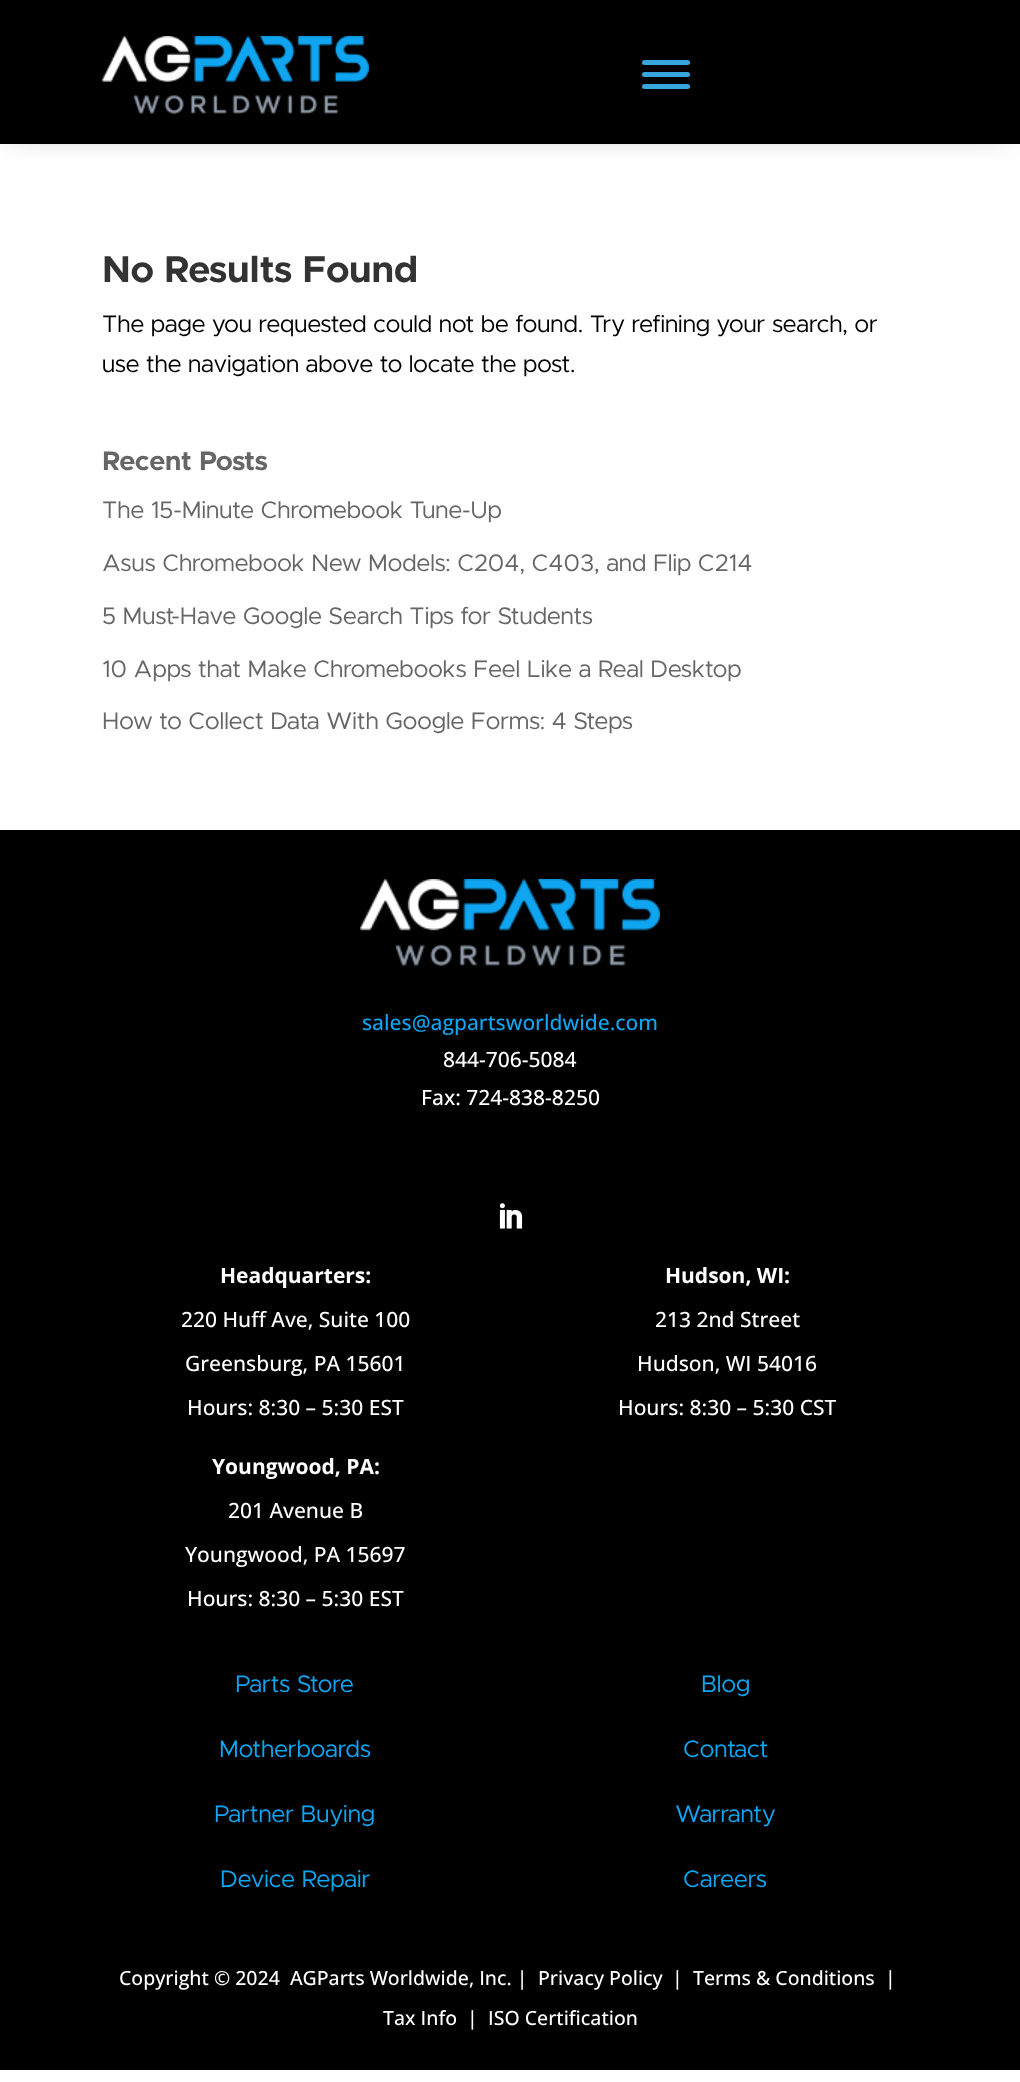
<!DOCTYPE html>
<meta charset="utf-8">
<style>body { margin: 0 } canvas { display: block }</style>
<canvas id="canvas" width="1020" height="2082"></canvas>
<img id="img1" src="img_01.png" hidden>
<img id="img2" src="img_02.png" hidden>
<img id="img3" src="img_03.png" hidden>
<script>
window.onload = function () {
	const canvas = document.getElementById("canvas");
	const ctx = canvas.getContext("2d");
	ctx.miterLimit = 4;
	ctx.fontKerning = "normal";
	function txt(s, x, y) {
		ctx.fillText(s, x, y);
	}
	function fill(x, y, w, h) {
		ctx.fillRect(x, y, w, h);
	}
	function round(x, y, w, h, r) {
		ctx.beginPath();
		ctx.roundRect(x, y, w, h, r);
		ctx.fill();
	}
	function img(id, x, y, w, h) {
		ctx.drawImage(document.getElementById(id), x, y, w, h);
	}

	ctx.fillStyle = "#FFFFFF";
	fill(0, 0, 1020, 2082);
	ctx.fillStyle = "rgba(0, 0, 0, 0.3)";
	ctx.filter = "blur(13.5px)";
	ctx.beginPath();
	ctx.rect(9, 8, 1002, 126);
	ctx.fill();
	ctx.filter = "none";
	ctx.fillStyle = "#000000";
	fill(0, 0, 1020, 144);
	img("img1", 102, 36, 267, 78);
	ctx.fillStyle = "#38A6DE";
	round(642, 60, 48, 5, 2.5);
	round(642, 72, 48, 5, 2.5);
	round(642, 84, 48, 5, 2.5);
	ctx.fillStyle = "#000000";
	fill(0, 830, 1020, 1240);
	img("img2", 360, 879, 300, 87);
	img("img3", 499, 1203, 24, 26);
	ctx.font = "bold 37.5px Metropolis";
	ctx.fillStyle = "#333333";
	txt("No Results Found", 102, 282);
	ctx.font = "24px Metropolis";
	ctx.fillStyle = "#000000";
	txt("The page you requested could not be found. Try refining your search, or", 102, 332);
	txt("use the navigation above to locate the post.", 102, 372);
	ctx.font = "bold 27px Metropolis";
	ctx.fillStyle = "#666666";
	txt("Recent Posts", 102, 470);
	ctx.font = "24px Metropolis";
	txt("The 15-Minute Chromebook Tune-Up", 102, 518);
	txt("Asus Chromebook New Models: C204, C403, and Flip C214", 102, 571);
	txt("5 Must-Have Google Search Tips for Students", 102, 624);
	txt("10 Apps that Make Chromebooks Feel Like a Real Desktop", 102, 677);
	txt("How to Collect Data With Google Forms: 4 Steps", 102, 729);
	ctx.font = "500 21px Open Sans";
	ctx.fillStyle = "#10A5F1";
	txt("sales@agpartsworldwide.com", 362, 1030);
	ctx.fillStyle = "#FFFFFF";
	txt("844-706-5084", 443, 1067);
	txt("Fax: 724-838-8250", 421, 1105);
	ctx.font = "bold 21px Open Sans";
	txt("Headquarters:", 220, 1283);
	ctx.font = "500 21px Open Sans";
	txt("220 Huff Ave, Suite 100", 181, 1327);
	txt("Greensburg, PA 15601", 185, 1371);
	txt("Hours: 8:30 – 5:30 EST", 187, 1415);
	ctx.font = "bold 21px Open Sans";
	txt("Youngwood, PA:", 212, 1474);
	ctx.font = "500 21px Open Sans";
	txt("201 Avenue B", 228, 1518);
	txt("Youngwood, PA 15697", 185, 1562);
	txt("Hours: 8:30 – 5:30 EST", 187, 1606);
	ctx.font = "bold 21px Open Sans";
	txt("Hudson, WI:", 665, 1283);
	ctx.font = "500 21px Open Sans";
	txt("213 2nd Street", 655, 1327);
	txt("Hudson, WI 54016", 637, 1371);
	txt("Hours: 8:30 – 5:30 CST", 618, 1415);
	ctx.font = "24px Metropolis";
	ctx.fillStyle = "#10A5F1";
	txt("Parts Store", 235, 1692);
	txt("Motherboards", 219, 1757);
	txt("Partner Buying", 214, 1822);
	txt("Device Repair", 220, 1887);
	txt("Blog", 701, 1692);
	txt("Contact", 683, 1757);
	txt("Warranty", 675, 1822);
	txt("Careers", 683, 1887);
	ctx.font = "500 19.5px Open Sans";
	ctx.fillStyle = "#FFFFFF";
	txt("Copyright © 2024  AGParts Worldwide, Inc. |", 119, 1985);
	txt("Privacy Policy", 538, 1985);
	txt("|", 672, 1985);
	txt("Terms & Conditions", 693, 1985);
	txt("|", 885, 1985);
	txt("Tax Info", 383, 2025);
	txt("|", 467, 2025);
	txt("ISO Certification", 488, 2025);
};
</script>
